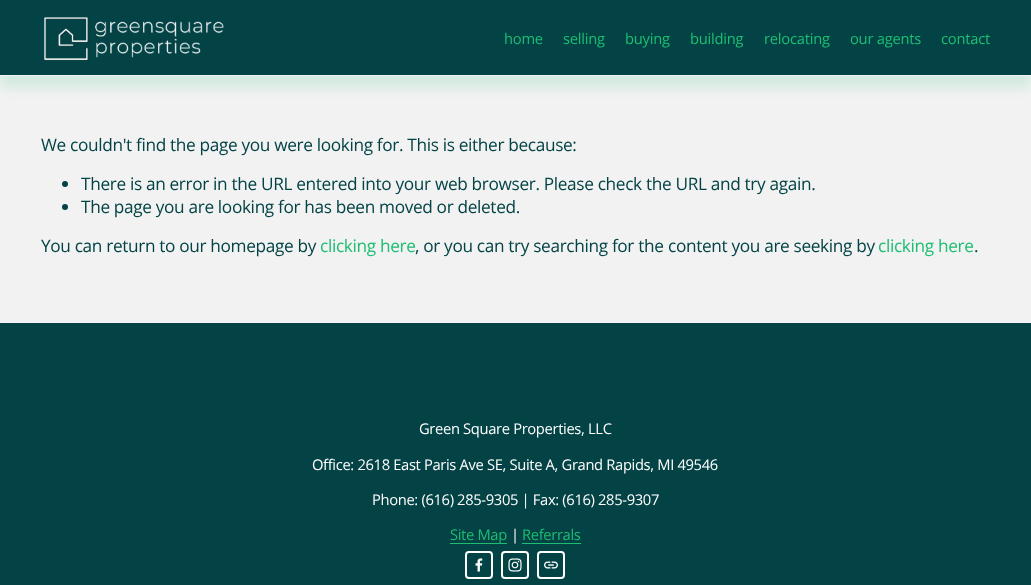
<!DOCTYPE html>
<meta charset="utf-8">
<style>body { margin: 0 } canvas { display: block }</style>
<canvas id="canvas" width="1031" height="585"></canvas>
<img id="img1" src="img_01.png" hidden>
<img id="img2" src="img_02.png" hidden>
<img id="img3" src="img_03.png" hidden>
<img id="img4" src="img_04.png" hidden>
<script>
window.onload = function () {
	const canvas = document.getElementById("canvas");
	const ctx = canvas.getContext("2d");
	ctx.miterLimit = 4;
	ctx.fontKerning = "normal";
	function txt(s, x, y) {
		ctx.fillText(s, x, y);
	}
	function fill(x, y, w, h) {
		ctx.fillRect(x, y, w, h);
	}
	function img(id, x, y, w, h) {
		ctx.drawImage(document.getElementById(id), x, y, w, h);
	}

	ctx.fillStyle = "#F2F2F2";
	fill(0, 0, 1031, 585);
	ctx.fillStyle = "#D2EADF";
	ctx.filter = "blur(6px)";
	ctx.beginPath();
	ctx.rect(0, 12, 1031, 76);
	ctx.fill();
	ctx.filter = "none";
	ctx.fillStyle = "#034345";
	fill(0, 0, 1031, 75);
	img("img1", 44, 17, 180, 44);
	ctx.fillStyle = "#F2F2F2";
	fill(0, 75, 1031, 1);
	ctx.fillStyle = "#034345";
	ctx.beginPath();
	ctx.arc(65, 184, 3, 0, Math.PI * 2);
	ctx.fill();
	ctx.beginPath();
	ctx.arc(65, 207, 3, 0, Math.PI * 2);
	ctx.fill();
	fill(0, 323, 1031, 262);
	ctx.fillStyle = "#1DBE72";
	fill(450, 543, 57, 1);
	fill(522, 543, 59, 1);
	ctx.beginPath();
	ctx.roundRect(466, 552, 26, 26, 3);
	ctx.strokeStyle = "#FFFFFF";
	ctx.lineWidth = 2;
	ctx.stroke();
	img("img2", 475, 558, 8, 14);
	ctx.beginPath();
	ctx.roundRect(502, 552, 26, 26, 3);
	ctx.stroke();
	img("img3", 508, 558, 14, 14);
	ctx.beginPath();
	ctx.roundRect(538, 552, 26, 26, 3);
	ctx.stroke();
	img("img4", 544, 561, 14, 8);
	ctx.letterSpacing = "-0.25px";
	ctx.font = "14.75px Open Sans";
	txt("home", 504, 44);
	txt("selling", 563, 44);
	txt("buying", 625, 44);
	txt("building", 690, 44);
	txt("relocating", 764, 44);
	txt("our agents", 850, 44);
	txt("contact", 941, 44);
	ctx.letterSpacing = "-0.35px";
	ctx.font = "17.25px Open Sans";
	ctx.fillStyle = "#034345";
	txt("We couldn't find the page you were looking for. This is either because:", 41, 151);
	txt("There is an error in the URL entered into your web browser. Please check the URL and try again.", 81, 190);
	txt("The page you are looking for has been moved or deleted.", 81, 213);
	txt("You can return to our homepage by", 41, 252);
	ctx.fillStyle = "#1DBE72";
	txt("clicking here", 320, 252);
	ctx.fillStyle = "#034345";
	txt(", or you can try searching for the", 415, 252);
	txt("content you are seeking by", 668, 252);
	ctx.fillStyle = "#1DBE72";
	txt("clicking here", 878, 252);
	ctx.fillStyle = "#034345";
	txt(".", 974, 252);
	ctx.font = "14.75px Open Sans";
	ctx.fillStyle = "#FFFFFF";
	txt("Green Square Properties, LLC", 419, 434);
	txt("Office: 2618 East Paris Ave SE, Suite A, Grand Rapids, MI 49546", 312, 470);
	txt("Phone: (616) 285-9305 | Fax: (616) 285-9307", 372, 505);
	ctx.fillStyle = "#1DBE72";
	txt("Site Map", 450, 540);
	ctx.fillStyle = "#FFFFFF";
	txt("|", 511, 540);
	ctx.fillStyle = "#1DBE72";
	txt("Referrals", 522, 540);
};
</script>
